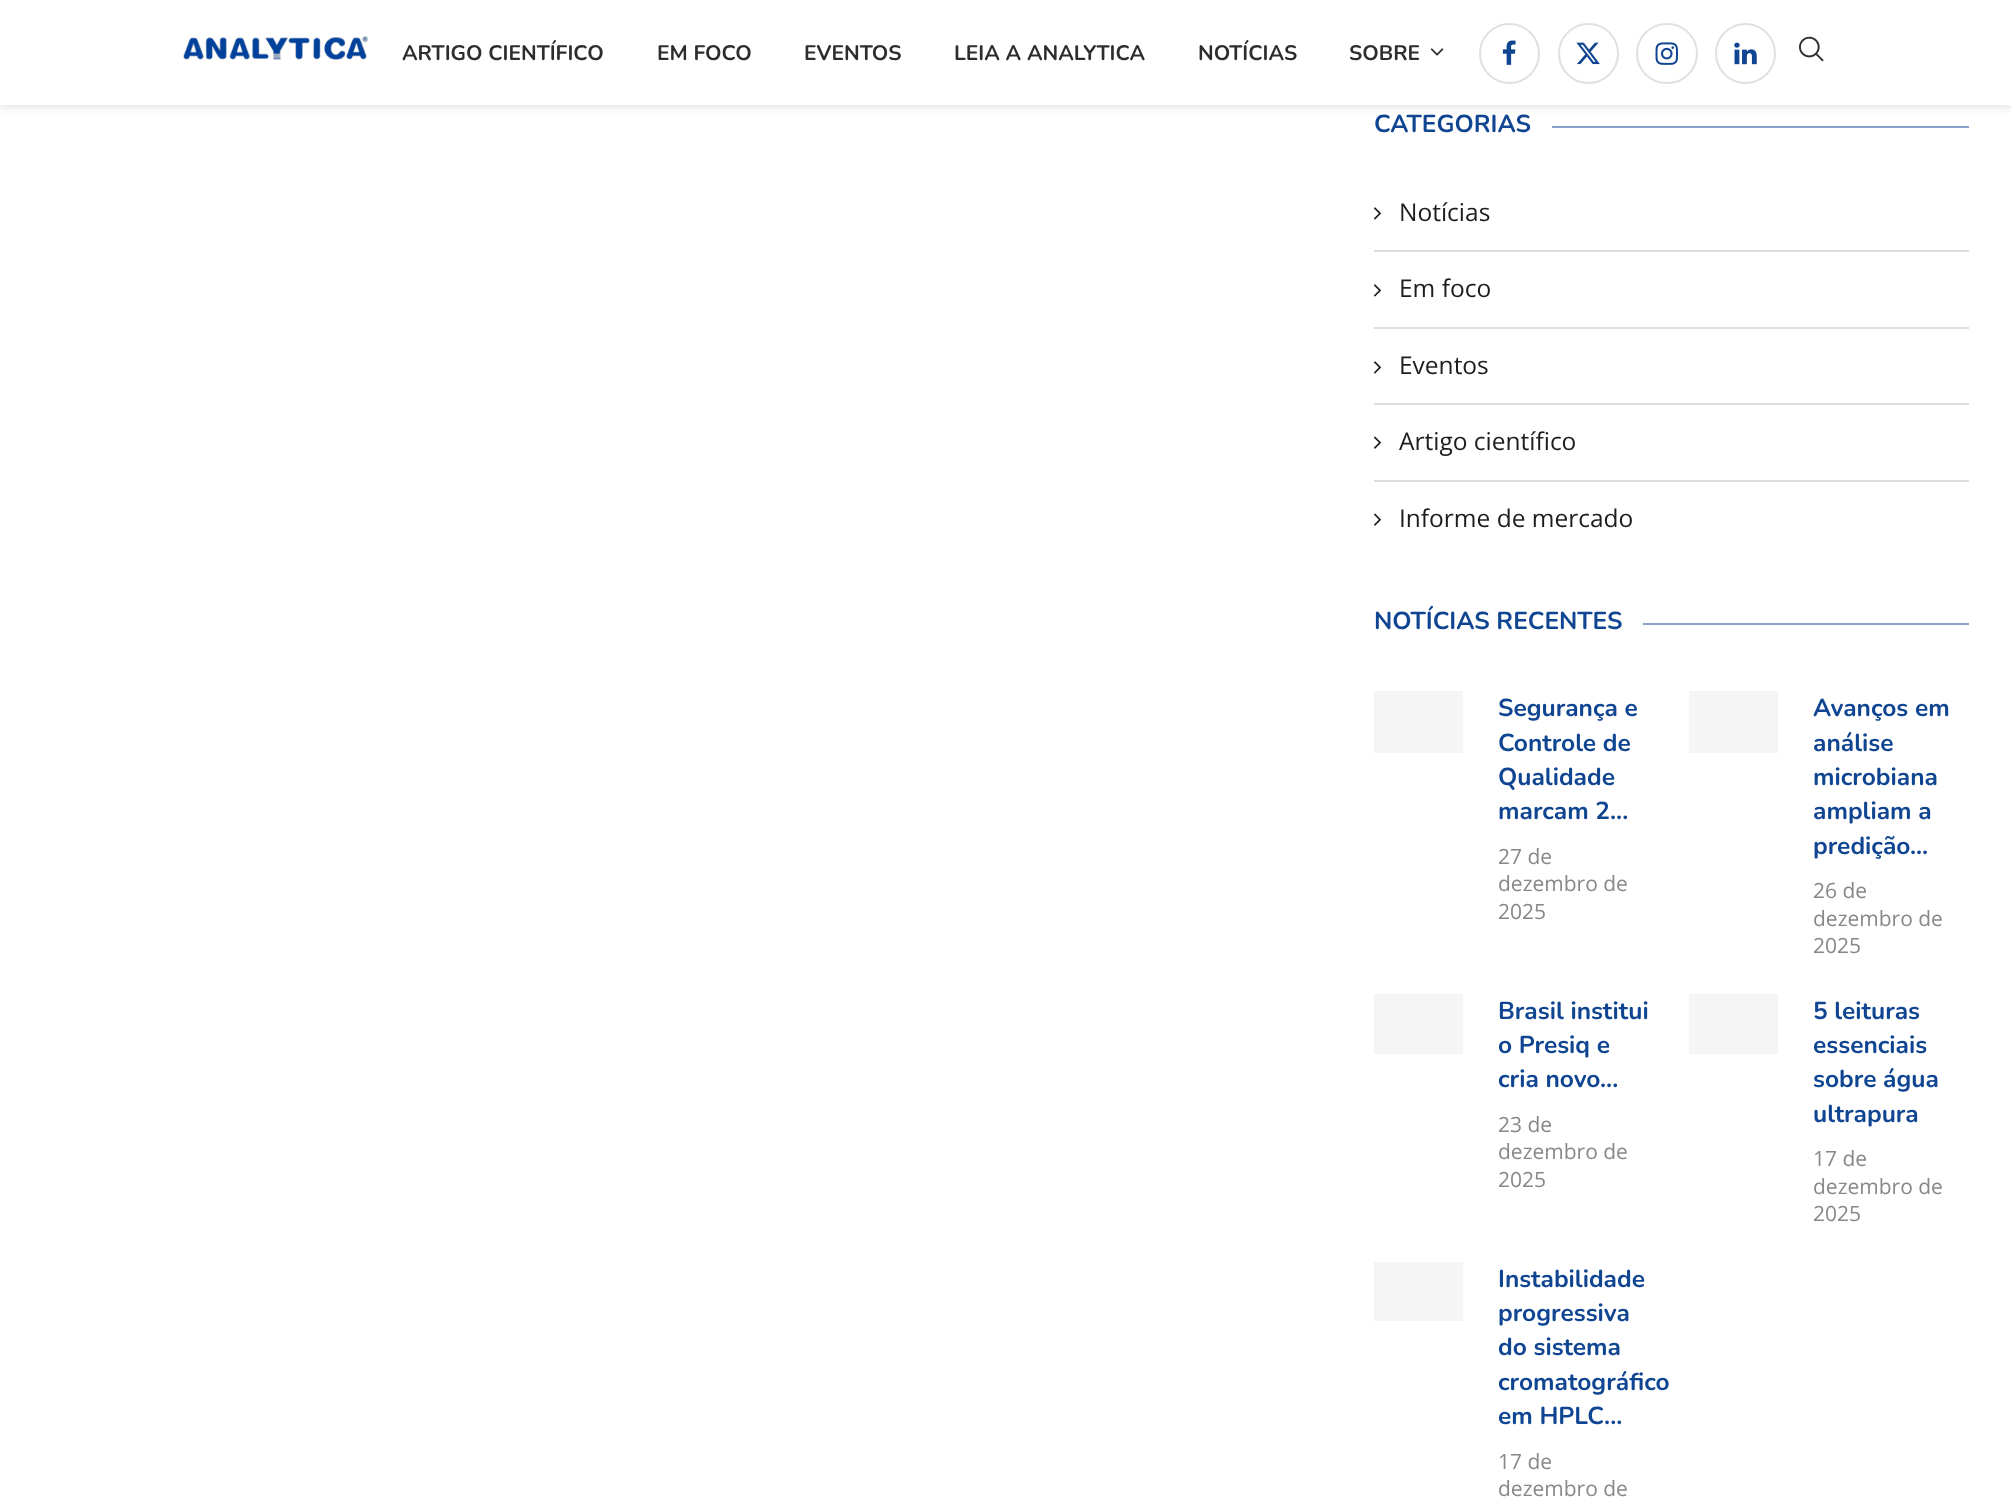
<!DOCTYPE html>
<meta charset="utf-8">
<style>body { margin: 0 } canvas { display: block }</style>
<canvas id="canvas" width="2011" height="1498"></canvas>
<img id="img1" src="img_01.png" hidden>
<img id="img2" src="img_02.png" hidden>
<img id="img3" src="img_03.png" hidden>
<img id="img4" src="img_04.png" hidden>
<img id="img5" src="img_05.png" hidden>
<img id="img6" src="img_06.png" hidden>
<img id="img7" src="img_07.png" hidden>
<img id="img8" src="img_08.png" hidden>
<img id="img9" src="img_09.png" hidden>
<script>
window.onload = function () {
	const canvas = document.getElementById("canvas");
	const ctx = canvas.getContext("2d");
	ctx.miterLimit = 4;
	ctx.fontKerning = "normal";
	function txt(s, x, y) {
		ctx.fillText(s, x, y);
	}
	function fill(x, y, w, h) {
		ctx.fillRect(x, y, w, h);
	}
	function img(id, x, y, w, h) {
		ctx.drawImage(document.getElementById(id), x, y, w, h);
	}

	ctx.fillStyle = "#FFFFFF";
	fill(0, 0, 2011, 1498);
	ctx.fillStyle = "rgba(190, 190, 190, 0.46)";
	ctx.filter = "blur(4.5px)";
	ctx.beginPath();
	ctx.rect(0, 2, 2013, 105);
	ctx.fill();
	ctx.filter = "none";
	ctx.fillStyle = "#FFFFFF";
	fill(0, 0, 2011, 105);
	img("img1", 183, 36, 185, 24);
	img("img2", 1430, 48, 14, 8);
	ctx.beginPath();
	ctx.arc(1509.5, 53.5, 29.5, 0, Math.PI * 2);
	ctx.strokeStyle = "#E0E0E0";
	ctx.lineWidth = 2;
	ctx.stroke();
	img("img3", 1502, 40, 14, 25);
	ctx.beginPath();
	ctx.arc(1588.5, 53.5, 29.5, 0, Math.PI * 2);
	ctx.stroke();
	img("img4", 1576, 42, 24, 23);
	ctx.beginPath();
	ctx.roundRect(1637, 24, 60, 59, 29.5);
	ctx.stroke();
	img("img5", 1655, 42, 23, 23);
	ctx.beginPath();
	ctx.arc(1745.5, 53.5, 29.5, 0, Math.PI * 2);
	ctx.stroke();
	img("img6", 1734, 42, 23, 23);
	img("img7", 1799, 36, 25, 26);
	ctx.fillStyle = "#88A2C9";
	fill(1552, 126, 417, 2);
	ctx.fillStyle = "#DEDEDE";
	fill(1374, 250, 595, 2);
	img("img8", 1374, 207, 7, 13);
	fill(1374, 327, 595, 2);
	img("img8", 1374, 284, 7, 13);
	fill(1374, 403, 595, 2);
	img("img8", 1374, 361, 7, 13);
	fill(1374, 480, 595, 2);
	img("img9", 1374, 436, 7, 13);
	img("img9", 1374, 513, 7, 13);
	ctx.fillStyle = "#88A2C9";
	fill(1643, 623, 326, 2);
	ctx.fillStyle = "#F5F5F5";
	fill(1374, 691, 89, 62);
	fill(1689, 691, 89, 62);
	fill(1374, 994, 89, 60);
	fill(1689, 994, 89, 60);
	fill(1374, 1262, 89, 59);
	ctx.font = "bold 21px Nunito";
	ctx.fillStyle = "#2D2D2D";
	txt("ARTIGO CIENTÍFICO", 402, 60);
	txt("EM FOCO", 657, 60);
	txt("EVENTOS", 804, 60);
	txt("LEIA A ANALYTICA", 954, 60);
	txt("NOTÍCIAS", 1198, 60);
	txt("SOBRE", 1349, 60);
	ctx.font = "bold 24.5px Nunito";
	ctx.fillStyle = "#104592";
	txt("CATEGORIAS", 1374, 132);
	ctx.font = "24.5px Open Sans";
	ctx.fillStyle = "#1D1D1D";
	txt("Notícias", 1399, 221);
	txt("Em foco", 1399, 297);
	txt("Eventos", 1399, 374);
	txt("Artigo científico", 1399, 450);
	txt("Informe de mercado", 1399, 527);
	ctx.font = "bold 24.5px Nunito";
	ctx.fillStyle = "#104592";
	txt("NOTÍCIAS RECENTES", 1374, 629);
	txt("Segurança e", 1498, 716);
	txt("Controle de", 1498, 751);
	txt("Qualidade", 1498, 785);
	txt("marcam 2...", 1498, 819);
	ctx.font = "21px Open Sans";
	ctx.fillStyle = "#888888";
	txt("27 de", 1498, 864);
	txt("dezembro de", 1498, 891);
	txt("2025", 1498, 919);
	ctx.font = "bold 24.5px Nunito";
	ctx.fillStyle = "#104592";
	txt("Avanços em", 1813, 716);
	txt("análise", 1813, 751);
	txt("microbiana", 1813, 785);
	txt("ampliam a", 1813, 819);
	txt("predição...", 1813, 854);
	ctx.font = "21px Open Sans";
	ctx.fillStyle = "#888888";
	txt("26 de", 1813, 898);
	txt("dezembro de", 1813, 926);
	txt("2025", 1813, 953);
	ctx.font = "bold 24.5px Nunito";
	ctx.fillStyle = "#104592";
	txt("Brasil institui", 1498, 1019);
	txt("o Presiq e", 1498, 1053);
	txt("cria novo...", 1498, 1087);
	ctx.font = "21px Open Sans";
	ctx.fillStyle = "#888888";
	txt("23 de", 1498, 1132);
	txt("dezembro de", 1498, 1159);
	txt("2025", 1498, 1187);
	ctx.font = "bold 24.5px Nunito";
	ctx.fillStyle = "#104592";
	txt("5 leituras", 1813, 1019);
	txt("essenciais", 1813, 1053);
	txt("sobre água", 1813, 1087);
	txt("ultrapura", 1813, 1122);
	ctx.font = "21px Open Sans";
	ctx.fillStyle = "#888888";
	txt("17 de", 1813, 1166);
	txt("dezembro de", 1813, 1194);
	txt("2025", 1813, 1221);
	ctx.font = "bold 24.5px Nunito";
	ctx.fillStyle = "#104592";
	txt("Instabilidade", 1498, 1287);
	txt("progressiva", 1498, 1321);
	txt("do sistema", 1498, 1355);
	txt("cromatográfico", 1498, 1390);
	txt("em HPLC...", 1498, 1424);
	ctx.font = "21px Open Sans";
	ctx.fillStyle = "#888888";
	txt("17 de", 1498, 1469);
	txt("dezembro de", 1498, 1496);
};
</script>
